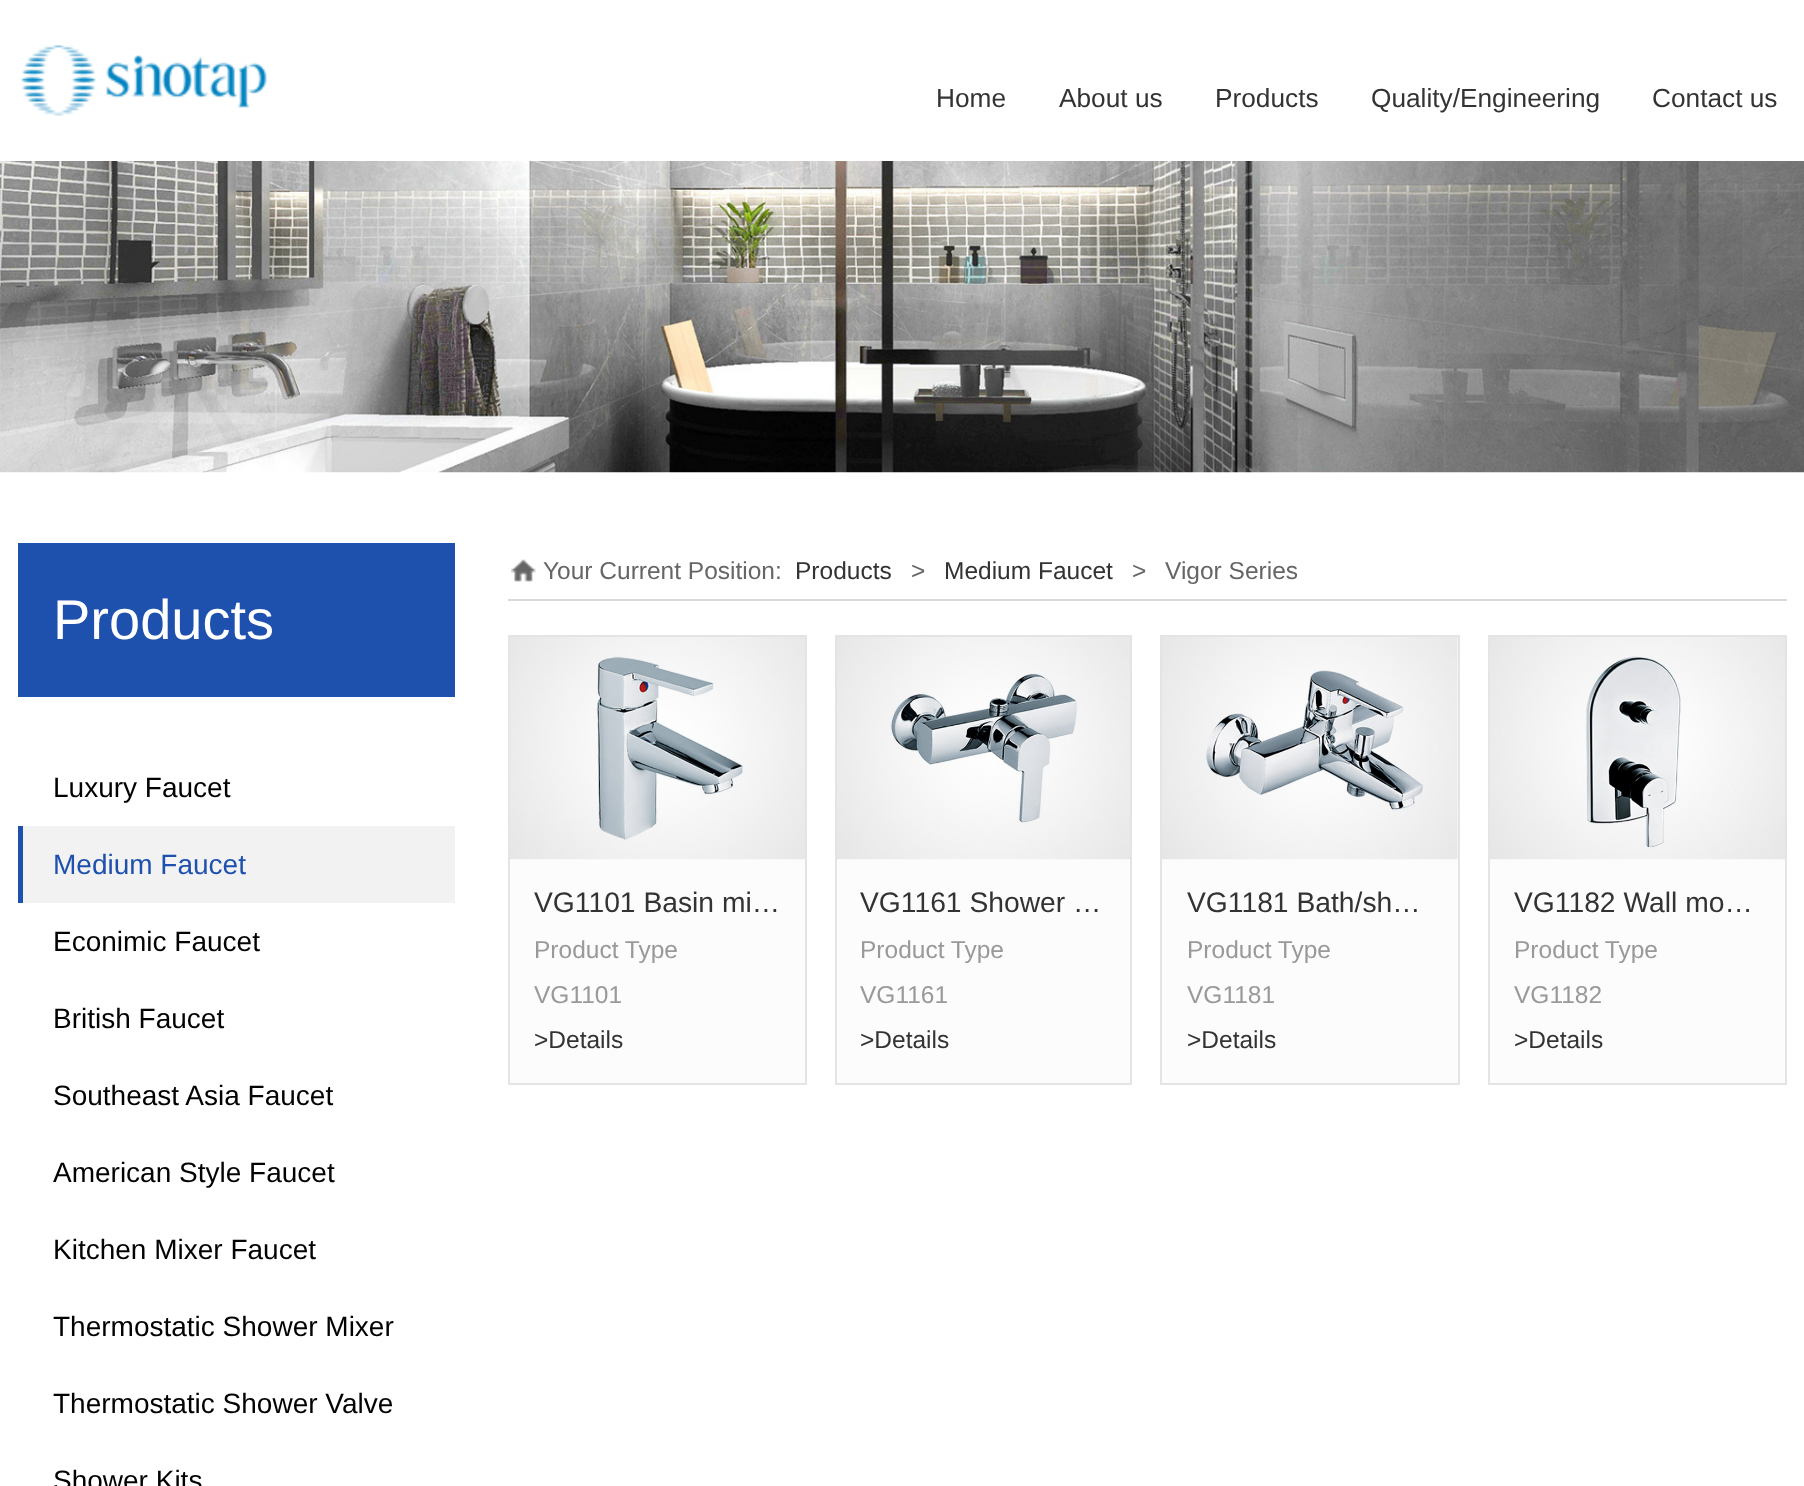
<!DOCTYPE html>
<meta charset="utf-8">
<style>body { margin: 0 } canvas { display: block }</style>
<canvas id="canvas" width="1804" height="1486"></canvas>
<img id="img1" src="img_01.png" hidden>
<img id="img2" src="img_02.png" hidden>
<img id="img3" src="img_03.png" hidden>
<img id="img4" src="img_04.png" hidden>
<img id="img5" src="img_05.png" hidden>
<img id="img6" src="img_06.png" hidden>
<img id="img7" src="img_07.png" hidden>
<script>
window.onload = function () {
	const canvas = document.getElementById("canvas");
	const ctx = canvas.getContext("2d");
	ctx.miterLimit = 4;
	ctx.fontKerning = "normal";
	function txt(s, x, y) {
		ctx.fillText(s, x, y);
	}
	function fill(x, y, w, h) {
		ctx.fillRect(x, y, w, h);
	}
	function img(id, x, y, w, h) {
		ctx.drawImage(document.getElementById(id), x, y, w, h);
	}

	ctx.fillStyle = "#FFFFFF";
	fill(0, 0, 1804, 1486);
	img("img1", 20, 45, 247, 71);
	img("img2", 0, 161, 1804, 312);
	ctx.fillStyle = "#1E50AE";
	fill(18, 543, 437, 154);
	fill(18, 826, 5, 77);
	ctx.fillStyle = "#F2F2F2";
	fill(23, 826, 432, 77);
	img("img3", 511, 559, 25, 23);
	ctx.fillStyle = "#DADADA";
	fill(508, 599, 1279, 2);
	ctx.fillStyle = "#FCFCFC";
	fill(510, 859, 295, 224);
	ctx.strokeStyle = "#E4E4E4";
	ctx.lineWidth = 2;
	ctx.strokeRect(509, 636, 297, 448);
	img("img4", 509, 637, 296, 223);
	fill(837, 859, 293, 224);
	ctx.strokeRect(836, 636, 295, 448);
	img("img5", 837, 637, 293, 223);
	ctx.beginPath();
	ctx.rect(1161, 636, 298, 448);
	ctx.fill();
	ctx.stroke();
	img("img6", 1162, 637, 296, 223);
	fill(1490, 859, 295, 224);
	ctx.strokeRect(1489, 636, 297, 448);
	img("img7", 1489, 637, 296, 223);
	ctx.font = "26.25px Liberation Sans";
	ctx.fillStyle = "#333333";
	txt("Home", 936, 107);
	txt("About us", 1059, 107);
	txt("Products", 1215, 107);
	txt("Quality/Engineering", 1371, 107);
	txt("Contact us", 1652, 107);
	ctx.font = "56px Liberation Sans";
	ctx.fillStyle = "#FFFFFF";
	txt("Products", 53, 639);
	ctx.font = "28px Liberation Sans";
	ctx.fillStyle = "#020202";
	txt("Luxury Faucet", 53, 797);
	ctx.fillStyle = "#1E50AE";
	txt("Medium Faucet", 53, 874);
	ctx.fillStyle = "#020202";
	txt("Econimic Faucet", 53, 951);
	txt("British Faucet", 53, 1028);
	txt("Southeast Asia Faucet", 53, 1105);
	txt("American Style Faucet", 53, 1182);
	txt("Kitchen Mixer Faucet", 53, 1259);
	txt("Thermostatic Shower Mixer", 53, 1336);
	txt("Thermostatic Shower Valve", 53, 1413);
	txt("Shower Kits", 53, 1490);
	ctx.font = "24.5px Liberation Sans";
	ctx.fillStyle = "#666666";
	txt("Your Current Position:", 543, 579);
	ctx.fillStyle = "#333333";
	txt("Products", 795, 579);
	ctx.fillStyle = "#666666";
	txt(">", 911, 579);
	ctx.fillStyle = "#333333";
	txt("Medium Faucet", 944, 579);
	ctx.fillStyle = "#666666";
	txt(">", 1132, 579);
	txt("Vigor Series", 1165, 579);
	ctx.font = "28.25px Liberation Sans";
	ctx.fillStyle = "#333333";
	txt("VG1101 Basin mi…", 534, 912);
	ctx.font = "24.5px Liberation Sans";
	ctx.fillStyle = "#999999";
	txt("Product Type", 534, 958);
	txt("VG1101", 534, 1003);
	ctx.fillStyle = "#333333";
	txt(">Details", 534, 1048);
	ctx.font = "28.25px Liberation Sans";
	txt("VG1161 Shower …", 860, 912);
	ctx.font = "24.5px Liberation Sans";
	ctx.fillStyle = "#999999";
	txt("Product Type", 860, 958);
	txt("VG1161", 860, 1003);
	ctx.fillStyle = "#333333";
	txt(">Details", 860, 1048);
	ctx.font = "28.25px Liberation Sans";
	txt("VG1181 Bath/sh…", 1187, 912);
	ctx.font = "24.5px Liberation Sans";
	ctx.fillStyle = "#999999";
	txt("Product Type", 1187, 958);
	txt("VG1181", 1187, 1003);
	ctx.fillStyle = "#333333";
	txt(">Details", 1187, 1048);
	ctx.font = "28.25px Liberation Sans";
	txt("VG1182 Wall mo…", 1514, 912);
	ctx.font = "24.5px Liberation Sans";
	ctx.fillStyle = "#999999";
	txt("Product Type", 1514, 958);
	txt("VG1182", 1514, 1003);
	ctx.fillStyle = "#333333";
	txt(">Details", 1514, 1048);
};
</script>
